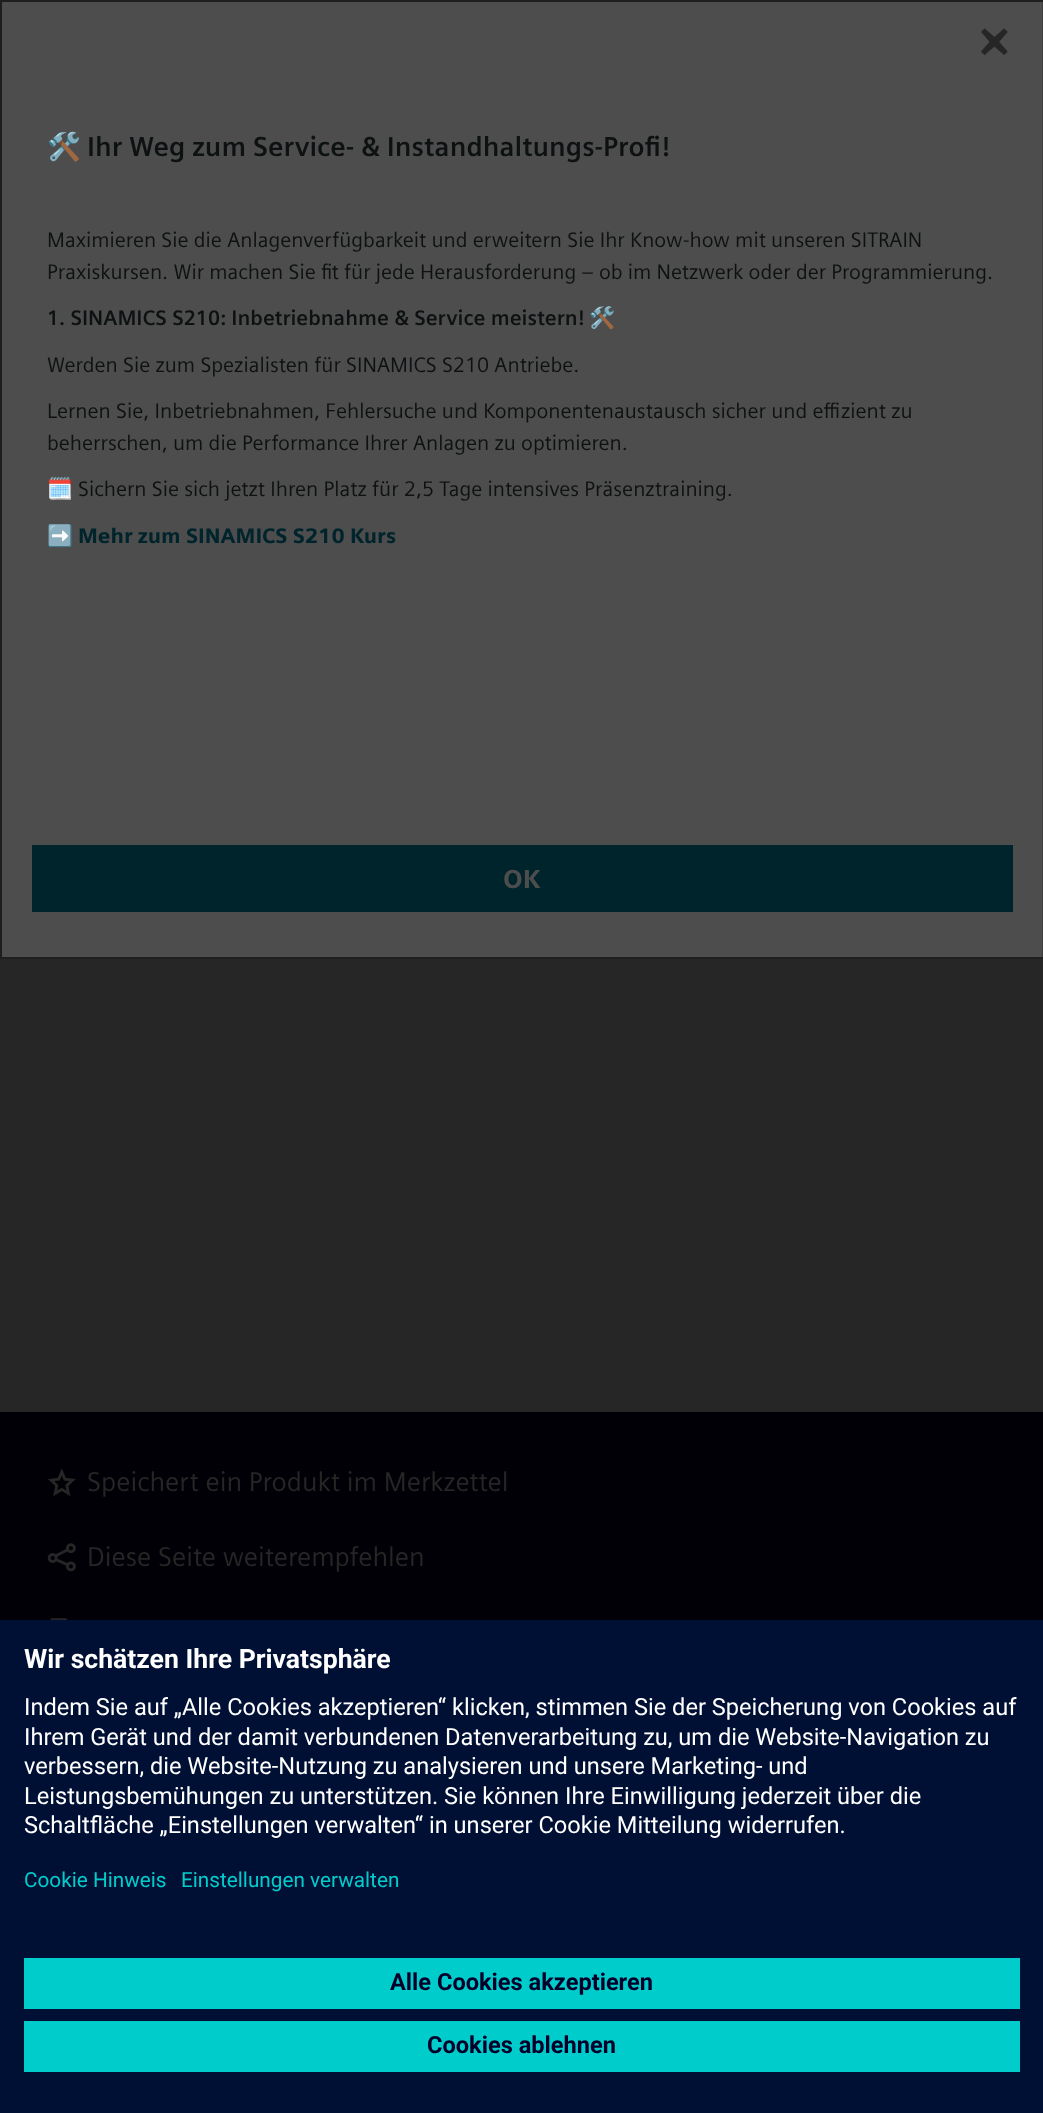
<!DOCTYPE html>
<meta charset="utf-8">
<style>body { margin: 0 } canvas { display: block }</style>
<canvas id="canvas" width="1043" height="2113"></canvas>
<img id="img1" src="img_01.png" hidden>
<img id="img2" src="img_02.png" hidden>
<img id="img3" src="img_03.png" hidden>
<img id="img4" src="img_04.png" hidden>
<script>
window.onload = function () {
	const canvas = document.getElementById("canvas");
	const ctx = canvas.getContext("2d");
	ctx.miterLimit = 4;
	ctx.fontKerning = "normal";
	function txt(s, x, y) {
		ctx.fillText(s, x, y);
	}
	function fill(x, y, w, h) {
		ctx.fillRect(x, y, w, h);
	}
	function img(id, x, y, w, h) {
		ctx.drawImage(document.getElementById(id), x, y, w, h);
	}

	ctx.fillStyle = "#262626";
	fill(0, 0, 1043, 2113);
	ctx.fillStyle = "#4D4D4D";
	fill(2, 2, 1041, 955);
	ctx.strokeStyle = "rgba(0, 0, 0, 0.2)";
	ctx.lineWidth = 2;
	ctx.strokeRect(1, 1, 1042, 957);
	img("img1", 981, 28, 27, 27);
	ctx.fillStyle = "#00242C";
	fill(32, 845, 981, 67);
	ctx.fillStyle = "#000006";
	fill(0, 1412, 1043, 208);
	img("img2", 48, 1468, 28, 29);
	img("img3", 47, 1543, 29, 29);
	img("img4", 50, 1618, 18, 2);
	ctx.fillStyle = "#001034";
	fill(0, 1620, 1043, 493);
	ctx.fillStyle = "#00CCCC";
	fill(24, 1958, 996, 51);
	fill(24, 2021, 996, 51);
	ctx.font = "27.3px Noto Color Emoji";
	ctx.fillStyle = "#0E1112";
	txt("🛠️", 47, 156);
	ctx.font = "bold 27.3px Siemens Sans";
	txt("Ihr Weg zum Service- & Instandhaltungs-Profi!", 87, 156);
	ctx.font = "21px Siemens Sans";
	txt("Maximieren Sie die Anlagenverfügbarkeit und erweitern Sie Ihr Know-how mit unseren SITRAIN", 47, 247);
	txt("Praxiskursen. Wir machen Sie fit für jede Herausforderung – ob im Netzwerk oder der Programmierung.", 47, 279);
	ctx.font = "bold 21px Siemens Sans";
	txt("1. SINAMICS S210: Inbetriebnahme & Service meistern!", 47, 325);
	ctx.font = "21px Noto Color Emoji";
	txt("🛠️", 589, 325);
	ctx.font = "21px Siemens Sans";
	txt("Werden Sie zum Spezialisten für SINAMICS S210 Antriebe.", 47, 372);
	txt("Lernen Sie, Inbetriebnahmen, Fehlersuche und Komponentenaustausch sicher und effizient zu", 47, 418);
	txt("beherrschen, um die Performance Ihrer Anlagen zu optimieren.", 47, 450);
	ctx.font = "21px Noto Color Emoji";
	txt("🗓️", 47, 496);
	ctx.font = "21px Siemens Sans";
	txt("Sichern Sie sich jetzt Ihren Platz für 2,5 Tage intensives Präsenztraining.", 78, 496);
	ctx.font = "21px Noto Color Emoji";
	txt("➡️", 47, 543);
	ctx.font = "900 21px Siemens Sans";
	ctx.fillStyle = "#00242C";
	txt("Mehr zum SINAMICS S210 Kurs", 78, 543);
	ctx.font = "900 26px Siemens Sans";
	ctx.fillStyle = "#4D4D4D";
	txt("OK", 503, 888);
	ctx.font = "27px Siemens Sans";
	ctx.fillStyle = "#262626";
	txt("Speichert ein Produkt im Merkzettel", 87, 1491);
	txt("Diese Seite weiterempfehlen", 87, 1566);
	ctx.font = "bold 26.6px Roboto";
	ctx.fillStyle = "#FFFFFF";
	txt("Wir schätzen Ihre Privatsphäre", 24, 1668);
	ctx.font = "23.6px Roboto";
	txt("Indem Sie auf „Alle Cookies akzeptieren“ klicken, stimmen Sie der Speicherung von Cookies auf", 24, 1715);
	txt("Ihrem Gerät und der damit verbundenen Datenverarbeitung zu, um die Website-Navigation zu", 24, 1745);
	txt("verbessern, die Website-Nutzung zu analysieren und unsere Marketing- und", 24, 1774);
	txt("Leistungsbemühungen zu unterstützen. Sie können Ihre Einwilligung jederzeit über die", 24, 1804);
	txt("Schaltfläche „Einstellungen verwalten“ in unserer Cookie Mitteilung widerrufen.", 24, 1833);
	ctx.font = "20.75px Roboto";
	ctx.fillStyle = "#00CCCC";
	txt("Cookie Hinweis", 24, 1887);
	txt("Einstellungen verwalten", 181, 1887);
	ctx.font = "bold 23.6px Roboto";
	ctx.fillStyle = "#000028";
	txt("Alle Cookies akzeptieren", 390, 1990);
	txt("Cookies ablehnen", 427, 2053);
};
</script>
